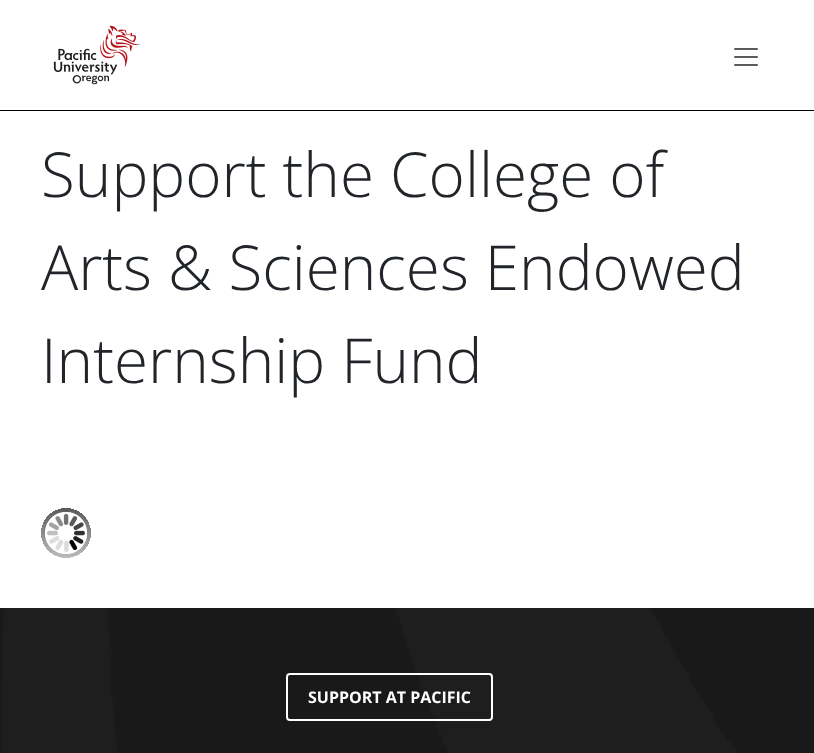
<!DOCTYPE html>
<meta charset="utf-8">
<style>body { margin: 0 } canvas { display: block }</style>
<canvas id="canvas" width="814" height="753"></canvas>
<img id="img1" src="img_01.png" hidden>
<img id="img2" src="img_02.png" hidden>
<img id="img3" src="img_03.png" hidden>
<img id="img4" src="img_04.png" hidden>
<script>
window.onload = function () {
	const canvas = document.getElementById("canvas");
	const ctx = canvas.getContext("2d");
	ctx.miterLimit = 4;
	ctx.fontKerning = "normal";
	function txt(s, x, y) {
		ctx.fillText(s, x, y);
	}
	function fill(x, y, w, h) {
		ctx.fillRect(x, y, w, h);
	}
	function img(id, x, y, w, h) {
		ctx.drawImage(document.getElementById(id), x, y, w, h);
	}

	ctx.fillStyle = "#FFFFFF";
	fill(0, 0, 814, 753);
	ctx.fillStyle = "#000000";
	fill(0, 110, 814, 1);
	img("img1", 53, 25, 87, 60);
	img("img2", 734, 48, 24, 18);
	img("img3", 41, 508, 50, 50);
	img("img4", 0, 608, 814, 145);
	ctx.beginPath();
	ctx.roundRect(287, 674, 205, 46, 3);
	ctx.strokeStyle = "#FFFFFF";
	ctx.lineWidth = 2;
	ctx.stroke();
	ctx.font = "300 62px Open Sans";
	ctx.fillStyle = "#212529";
	txt("Support the College of", 41, 197);
	txt("Arts & Sciences Endowed", 41, 290);
	txt("Internship Fund", 41, 383);
	ctx.font = "bold 16px Open Sans";
	ctx.fillStyle = "#FFFFFF";
	txt("SUPPORT AT PACIFIC", 308, 703);
};
</script>
